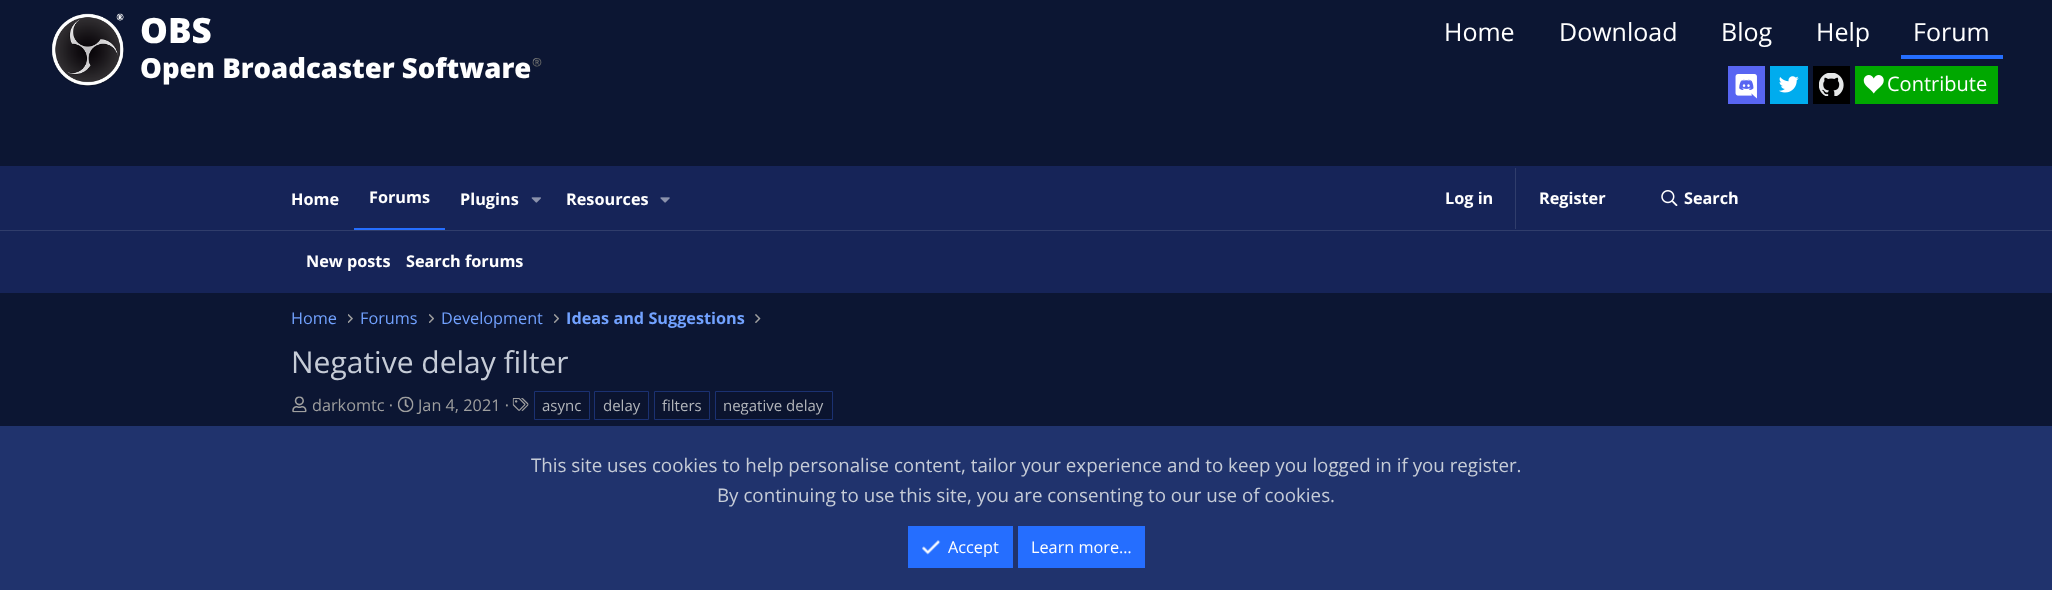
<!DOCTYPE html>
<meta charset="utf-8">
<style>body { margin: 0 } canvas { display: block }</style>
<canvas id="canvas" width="2052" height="590"></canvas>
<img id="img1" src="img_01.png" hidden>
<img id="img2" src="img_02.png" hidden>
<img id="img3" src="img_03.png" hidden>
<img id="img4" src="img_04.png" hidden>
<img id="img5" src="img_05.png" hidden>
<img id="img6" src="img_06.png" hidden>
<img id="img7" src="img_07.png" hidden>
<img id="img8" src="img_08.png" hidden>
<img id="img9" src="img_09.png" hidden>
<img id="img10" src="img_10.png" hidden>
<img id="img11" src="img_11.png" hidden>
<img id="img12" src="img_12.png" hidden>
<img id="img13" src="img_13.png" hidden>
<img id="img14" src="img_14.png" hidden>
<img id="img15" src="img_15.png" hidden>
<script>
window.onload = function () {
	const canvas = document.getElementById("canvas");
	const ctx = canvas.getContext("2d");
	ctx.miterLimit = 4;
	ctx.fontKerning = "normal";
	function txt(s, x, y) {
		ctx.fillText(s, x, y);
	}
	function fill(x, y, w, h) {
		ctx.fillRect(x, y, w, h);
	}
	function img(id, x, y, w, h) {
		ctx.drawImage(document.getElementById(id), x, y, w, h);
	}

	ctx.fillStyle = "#0C1633";
	fill(0, 0, 2052, 590);
	img("img1", 52, 13, 72, 74);
	ctx.fillStyle = "#256EFF";
	fill(1901, 55, 102, 4);
	ctx.fillStyle = "#5865F2";
	fill(1728, 66, 37, 38);
	img("img2", 1735, 74, 22, 25);
	ctx.fillStyle = "#00ACEE";
	fill(1770, 66, 38, 38);
	img("img3", 1779, 76, 20, 17);
	ctx.fillStyle = "#000000";
	fill(1813, 66, 37, 38);
	img("img4", 1819, 73, 25, 23);
	ctx.fillStyle = "#00A800";
	fill(1855, 66, 143, 38);
	img("img5", 1863, 75, 21, 19);
	ctx.fillStyle = "#162458";
	fill(0, 166, 2052, 64);
	ctx.fillStyle = "#256EFF";
	fill(354, 228, 91, 2);
	img("img6", 531, 197, 10, 6);
	img("img7", 660, 197, 10, 6);
	ctx.fillStyle = "#303D6B";
	fill(1515, 168, 1, 61);
	img("img8", 1661, 190, 17, 16);
	ctx.fillStyle = "#162458";
	fill(0, 231, 2052, 62);
	ctx.fillStyle = "#303D6B";
	fill(0, 230, 2052, 1);
	img("img9", 348, 314, 5, 9);
	img("img10", 429, 314, 5, 9);
	img("img10", 554, 314, 5, 9);
	img("img11", 755, 314, 6, 9);
	img("img12", 292, 396, 15, 17);
	img("img13", 397, 396, 17, 17);
	img("img14", 512, 398, 17, 13);
	ctx.fillStyle = "#0B142F";
	ctx.beginPath();
	ctx.rect(534.5, 391.5, 55, 28);
	ctx.fill();
	ctx.strokeStyle = "#1B3171";
	ctx.stroke();
	ctx.beginPath();
	ctx.rect(594.5, 391.5, 54, 28);
	ctx.fill();
	ctx.stroke();
	ctx.beginPath();
	ctx.rect(654.5, 391.5, 55, 28);
	ctx.fill();
	ctx.stroke();
	ctx.beginPath();
	ctx.rect(715.5, 391.5, 117, 28);
	ctx.fill();
	ctx.stroke();
	ctx.fillStyle = "#20336D";
	fill(0, 426, 2052, 164);
	ctx.fillStyle = "#256EFF";
	fill(908, 526, 105, 42);
	img("img15", 922, 540, 19, 15);
	fill(1018, 526, 127, 42);
	ctx.font = "800 35px Open Sans";
	ctx.fillStyle = "#FFFFFF";
	txt("OBS", 140, 43);
	ctx.font = "800 27.5px Open Sans";
	txt("Open Broadcaster Software", 140, 78);
	ctx.font = "bold 8px Noto Color Emoji";
	txt("®️", 532, 65);
	ctx.font = "25px Open Sans";
	txt("Home", 1444, 41);
	txt("Download", 1559, 41);
	txt("Blog", 1721, 41);
	txt("Help", 1816, 41);
	txt("Forum", 1913, 41);
	ctx.font = "20px Open Sans";
	txt("Contribute", 1887, 91);
	ctx.font = "bold 16.25px Open Sans";
	txt("Home", 291, 205);
	txt("Forums", 369, 203);
	txt("Plugins", 460, 205);
	txt("Resources", 566, 205);
	txt("Log in", 1445, 204);
	txt("Register", 1539, 204);
	txt("Search", 1684, 204);
	txt("New posts", 306, 267);
	txt("Search forums", 406, 267);
	ctx.font = "16.25px Open Sans";
	ctx.fillStyle = "#72A2FF";
	txt("Home", 291, 324);
	txt("Forums", 360, 324);
	txt("Development", 441, 324);
	ctx.font = "bold 16.25px Open Sans";
	txt("Ideas and Suggestions", 566, 324);
	ctx.font = "30px Open Sans";
	ctx.fillStyle = "#C6CCD7";
	txt("Negative delay filter", 291, 373);
	ctx.font = "16.25px Open Sans";
	ctx.fillStyle = "#9F9F9F";
	txt("darkomtc ·", 312, 411);
	txt("Jan 4, 2021 ·", 418, 411);
	ctx.font = "15px Open Sans";
	ctx.fillStyle = "#B3B6BB";
	txt("async", 542, 411);
	txt("delay", 603, 411);
	txt("filters", 662, 411);
	txt("negative delay", 723, 411);
	ctx.font = "18.75px Open Sans";
	ctx.fillStyle = "#C6CCD7";
	txt("This site uses cookies to help personalise content, tailor your experience and to keep you logged in if you register.", 531, 472);
	txt("By continuing to use this site, you are consenting to our use of cookies.", 717, 502);
	ctx.font = "16.25px Open Sans";
	ctx.fillStyle = "#FFFFFF";
	txt("Accept", 948, 553);
	txt("Learn more…", 1031, 553);
};
</script>
